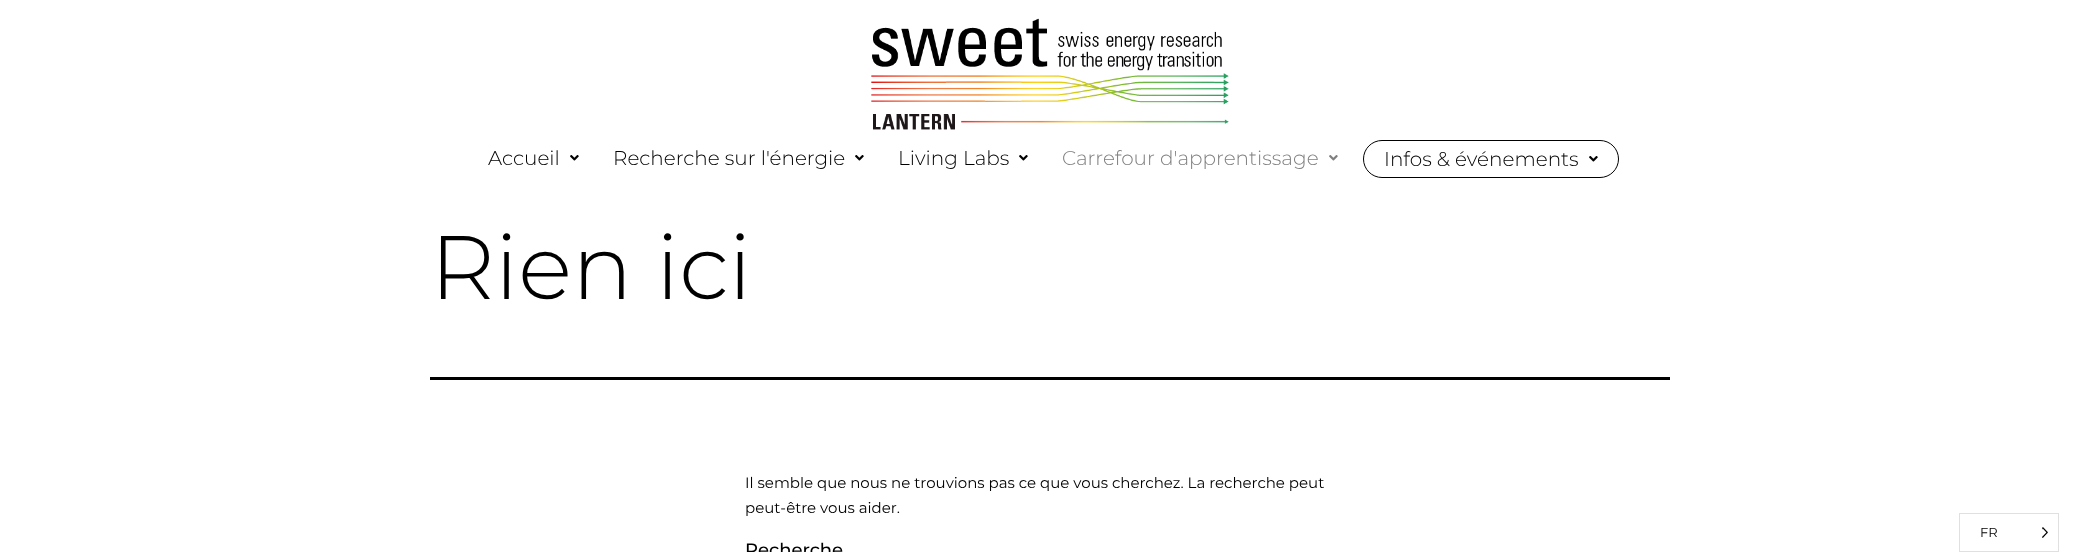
<!DOCTYPE html>
<meta charset="utf-8">
<style>body { margin: 0 } canvas { display: block }</style>
<canvas id="canvas" width="2099" height="552"></canvas>
<img id="img1" src="img_01.png" hidden>
<img id="img2" src="img_02.png" hidden>
<img id="img3" src="img_03.png" hidden>
<img id="img4" src="img_04.png" hidden>
<script>
window.onload = function () {
	const canvas = document.getElementById("canvas");
	const ctx = canvas.getContext("2d");
	ctx.miterLimit = 4;
	ctx.fontKerning = "normal";
	function txt(s, x, y) {
		ctx.fillText(s, x, y);
	}
	function fill(x, y, w, h) {
		ctx.fillRect(x, y, w, h);
	}
	function img(id, x, y, w, h) {
		ctx.drawImage(document.getElementById(id), x, y, w, h);
	}

	ctx.fillStyle = "#FFFFFF";
	fill(0, 0, 2099, 552);
	img("img1", 871, 18, 358, 112);
	img("img2", 570, 155, 9, 6);
	img("img2", 855, 155, 9, 6);
	img("img2", 1019, 155, 9, 6);
	img("img3", 1329, 155, 9, 6);
	ctx.beginPath();
	ctx.roundRect(1363.5, 140.5, 255, 37, 18.5);
	ctx.strokeStyle = "#000000";
	ctx.stroke();
	img("img2", 1589, 156, 9, 6);
	ctx.fillStyle = "#000000";
	fill(430, 377, 1240, 3);
	ctx.strokeStyle = "#E0E0E0";
	ctx.strokeRect(1959.5, 513.5, 99, 38);
	img("img4", 2042, 527, 6, 11);
	ctx.font = "300 20px Montserrat";
	txt("Accueil", 488, 165);
	txt("Recherche sur l'énergie", 613, 165);
	txt("Living Labs", 898, 165);
	ctx.fillStyle = "#808080";
	txt("Carrefour d'apprentissage", 1062, 165);
	ctx.fillStyle = "#000000";
	txt("Infos & événements", 1384, 166);
	ctx.font = "300 90px Montserrat";
	txt("Rien ici", 430, 299);
	ctx.font = "15px Montserrat";
	txt("Il semble que nous ne trouvions pas ce que vous cherchez. La recherche peut", 745, 488);
	txt("peut-être vous aider.", 745, 513);
	ctx.font = "500 18px Montserrat";
	txt("Recherche", 745, 556);
	ctx.font = "13px Montserrat";
	txt("FR", 1980, 537);
};
</script>
